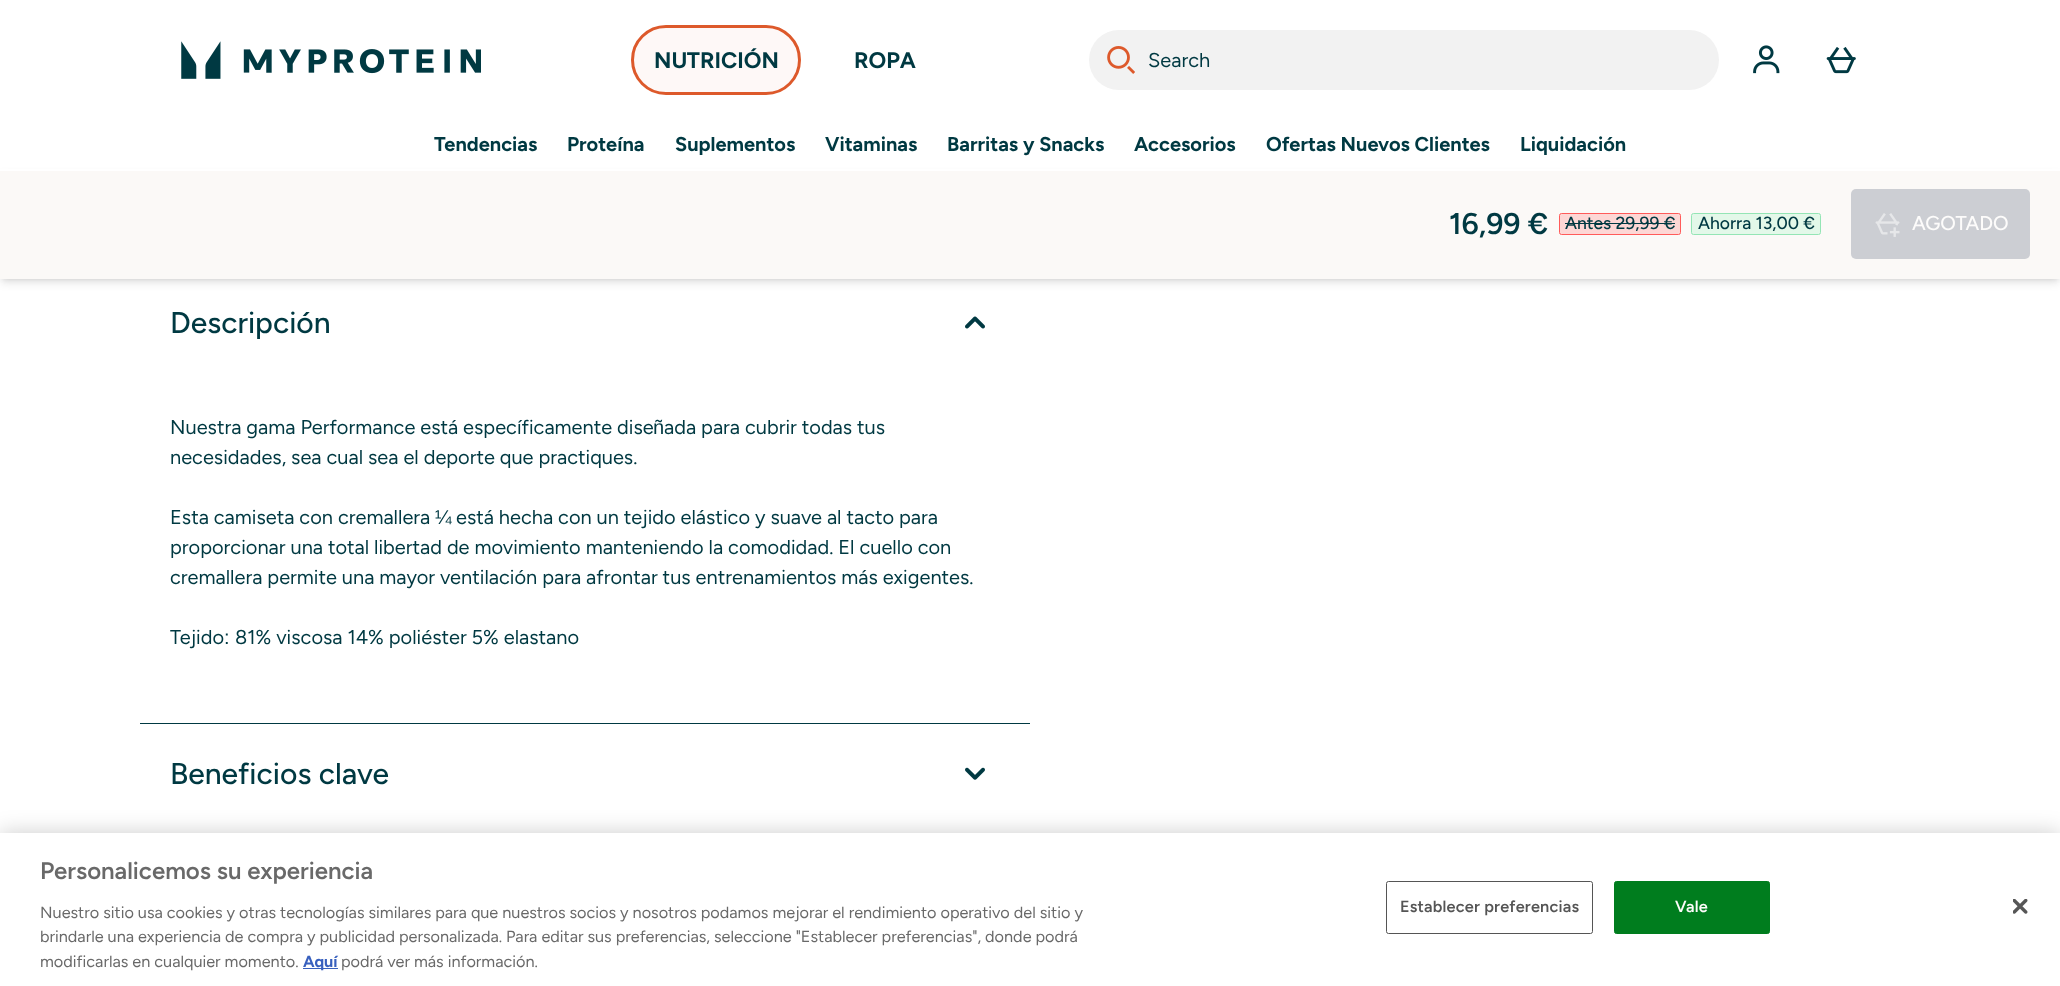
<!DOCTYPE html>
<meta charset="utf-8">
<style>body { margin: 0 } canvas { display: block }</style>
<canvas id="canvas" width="2060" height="986"></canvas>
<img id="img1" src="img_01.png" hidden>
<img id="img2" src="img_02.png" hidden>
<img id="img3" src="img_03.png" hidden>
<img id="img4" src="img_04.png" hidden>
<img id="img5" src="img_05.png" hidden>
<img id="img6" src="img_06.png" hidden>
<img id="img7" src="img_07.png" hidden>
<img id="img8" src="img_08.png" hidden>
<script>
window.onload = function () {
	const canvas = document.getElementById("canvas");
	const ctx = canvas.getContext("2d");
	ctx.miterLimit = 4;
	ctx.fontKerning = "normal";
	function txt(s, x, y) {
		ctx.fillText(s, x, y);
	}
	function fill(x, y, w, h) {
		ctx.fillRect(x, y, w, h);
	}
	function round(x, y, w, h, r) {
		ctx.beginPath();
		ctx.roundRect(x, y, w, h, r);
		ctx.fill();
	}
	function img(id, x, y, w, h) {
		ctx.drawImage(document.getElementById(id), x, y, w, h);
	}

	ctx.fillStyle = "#FFFFFF";
	fill(0, 0, 2060, 986);
	img("img1", 181, 41, 300, 38);
	ctx.fillStyle = "#FEF8F7";
	ctx.beginPath();
	ctx.roundRect(632.5, 26.5, 167, 67, 33.5);
	ctx.fill();
	ctx.strokeStyle = "#DD592B";
	ctx.lineWidth = 3;
	ctx.stroke();
	ctx.fillStyle = "#F2F2F2";
	round(1089, 30, 630, 60, 30);
	img("img2", 1107, 46, 28, 28);
	img("img3", 1753, 45, 27, 29);
	img("img4", 1826, 47, 30, 27);
	ctx.fillStyle = "rgba(0, 0, 0, 0.1)";
	ctx.filter = "blur(2.5px)";
	ctx.beginPath();
	ctx.rect(3, 174, 2055, 105);
	ctx.fill();
	ctx.filter = "none";
	ctx.filter = "blur(4px)";
	ctx.beginPath();
	ctx.rect(1, 175, 2058, 108);
	ctx.fill();
	ctx.filter = "none";
	ctx.fillStyle = "#FFFFFF";
	fill(0, 169, 2060, 2);
	ctx.fillStyle = "#FBF9F7";
	fill(0, 171, 2060, 108);
	ctx.fillStyle = "#FDD7D5";
	ctx.beginPath();
	ctx.roundRect(1559.5, 213.5, 121, 21, 2);
	ctx.fill();
	ctx.strokeStyle = "#FF5B5A";
	ctx.lineWidth = 1;
	ctx.stroke();
	ctx.fillStyle = "#003942";
	fill(1565, 223, 110, 1);
	ctx.fillStyle = "#E3F8E9";
	ctx.beginPath();
	ctx.roundRect(1691.5, 213.5, 129, 21, 2);
	ctx.fill();
	ctx.strokeStyle = "#94E5B5";
	ctx.stroke();
	ctx.fillStyle = "#CCCED3";
	round(1851, 189, 179, 70, 5);
	img("img5", 1875, 213, 25, 24);
	img("img6", 965, 316, 20, 13);
	ctx.fillStyle = "#003942";
	fill(140, 723, 890, 1);
	img("img7", 965, 767, 20, 13);
	ctx.fillStyle = "rgba(0, 0, 0, 0.2)";
	ctx.filter = "blur(11px)";
	ctx.beginPath();
	ctx.rect(0, 833, 2060, 153);
	ctx.fill();
	ctx.filter = "none";
	ctx.fillStyle = "#FFFFFF";
	fill(0, 833, 2060, 153);
	ctx.fillStyle = "#3860BE";
	fill(303, 968, 35, 1);
	ctx.beginPath();
	ctx.roundRect(1386.5, 881.5, 206, 52, 2);
	ctx.strokeStyle = "#555555";
	ctx.stroke();
	ctx.fillStyle = "#007D1E";
	ctx.beginPath();
	ctx.roundRect(1614.5, 881.5, 155, 52, 2);
	ctx.fill();
	ctx.strokeStyle = "#007D1E";
	ctx.stroke();
	img("img8", 2013, 899, 15, 15);
	ctx.font = "bold 22.5px Figtree";
	ctx.fillStyle = "#003942";
	txt("NUTRICIÓN", 654, 68);
	txt("ROPA", 854, 68);
	ctx.font = "20px Figtree";
	txt("Search", 1148, 67);
	ctx.font = "bold 20px Figtree";
	txt("Tendencias", 434, 151);
	txt("Proteína", 567, 151);
	txt("Suplementos", 675, 151);
	txt("Vitaminas", 825, 151);
	txt("Barritas y Snacks", 947, 151);
	txt("Accesorios", 1134, 151);
	txt("Ofertas Nuevos Clientes", 1266, 151);
	txt("Liquidación", 1520, 151);
	ctx.font = "600 30px Figtree";
	txt("16,99 €", 1449, 234);
	ctx.font = "500 17.5px Figtree";
	txt("Antes 29,99 €", 1565, 229);
	txt("Ahorra 13,00 €", 1698, 229);
	ctx.font = "500 20px Figtree";
	ctx.fillStyle = "#FDFCFB";
	txt("AGOTADO", 1912, 230);
	ctx.font = "500 30px Figtree";
	ctx.fillStyle = "#003942";
	txt("Descripción", 170, 333);
	ctx.font = "20px Figtree";
	txt("Nuestra gama Performance está específicamente dise", 170, 434);
	ctx.font = "20px Liberation Sans";
	txt("ñ", 653, 434);
	ctx.font = "20px Figtree";
	txt("ada para cubrir todas tus", 664, 434);
	txt("necesidades, sea cual sea el deporte que practiques.", 170, 464);
	txt("Esta camiseta con cremallera", 170, 524);
	ctx.font = "20px Liberation Sans";
	txt("¼", 435, 524);
	ctx.font = "20px Figtree";
	txt("está hecha con un tejido elástico y suave al tacto para", 456, 524);
	txt("proporcionar una total libertad de movimiento manteniendo la comodidad. El cuello con", 170, 554);
	txt("cremallera permite una mayor ventilación para afrontar tus entrenamientos más exigentes.", 170, 584);
	txt("Tejido", 170, 644);
	ctx.font = "20px Liberation Sans";
	txt(":", 224, 644);
	ctx.font = "20px Figtree";
	txt("81% viscosa 14% poliéster 5% elastano", 235, 644);
	ctx.font = "500 30px Figtree";
	txt("Beneficios clave", 170, 784);
	ctx.font = "600 24px Figtree";
	ctx.fillStyle = "#696969";
	txt("Personalicemos su experiencia", 40, 879);
	ctx.font = "16.25px Figtree";
	txt("Nuestro sitio usa cookies y otras tecnologías similares para que nuestros socios y nosotros podamos mejorar el rendimiento operativo del sitio y", 40, 918);
	txt("brindarle una experiencia de compra y publicidad personalizada. Para editar sus preferencias, seleccione \"Establecer preferencias\", donde podrá", 40, 942);
	txt("modificarlas en cualquier momento.", 40, 967);
	ctx.font = "bold 16.25px Figtree";
	ctx.fillStyle = "#3860BE";
	txt("Aquí", 303, 967);
	ctx.font = "16.25px Figtree";
	ctx.fillStyle = "#696969";
	txt("podrá ver más información.", 341, 967);
	ctx.letterSpacing = "0.2px";
	ctx.font = "600 16.25px Figtree";
	ctx.fillStyle = "#555555";
	txt("Establecer preferencias", 1400, 912);
	ctx.fillStyle = "#FDFCFB";
	txt("Vale", 1675, 912);
};
</script>
